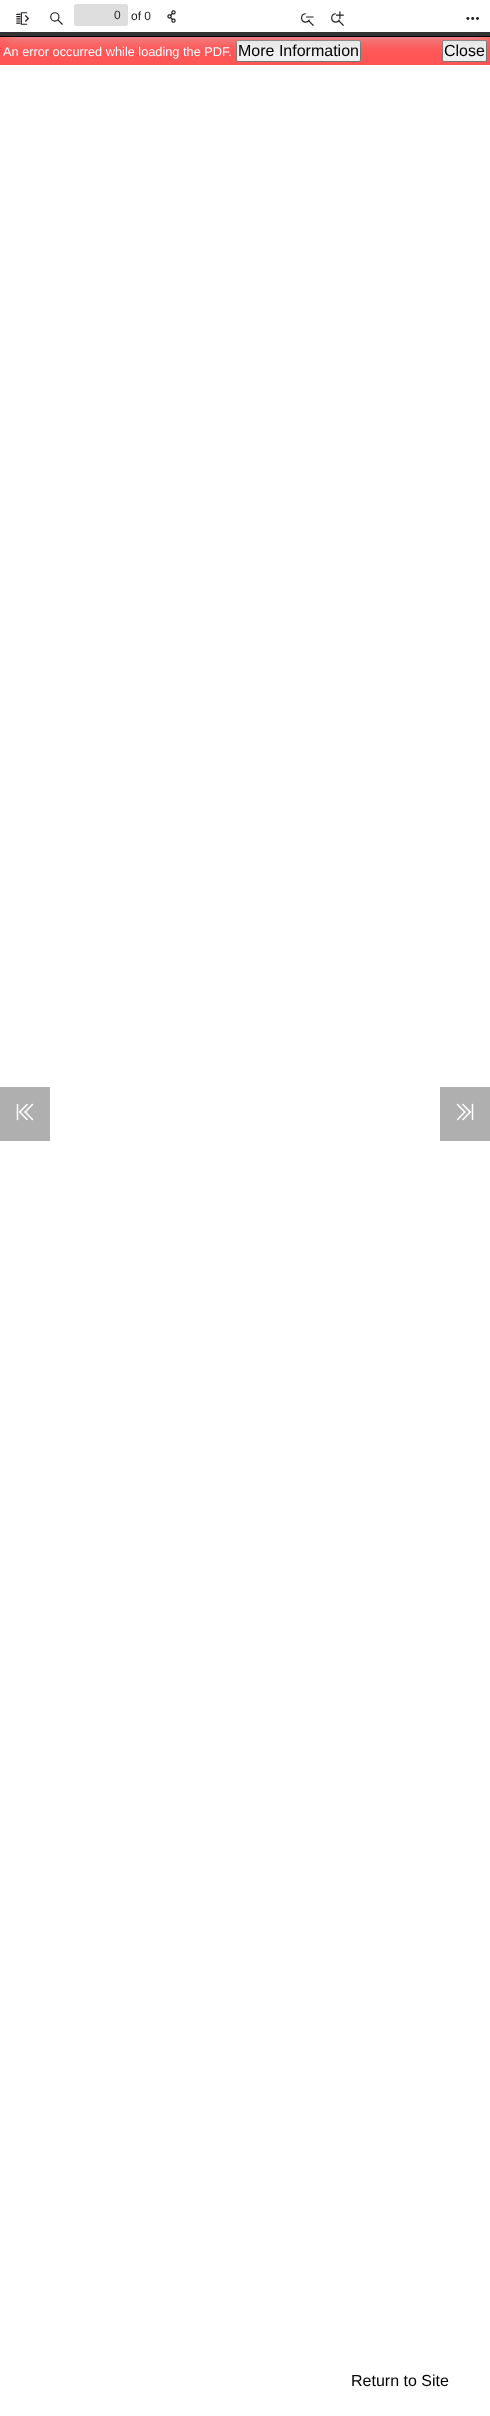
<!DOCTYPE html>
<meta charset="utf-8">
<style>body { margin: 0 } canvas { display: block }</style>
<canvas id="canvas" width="490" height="2416"></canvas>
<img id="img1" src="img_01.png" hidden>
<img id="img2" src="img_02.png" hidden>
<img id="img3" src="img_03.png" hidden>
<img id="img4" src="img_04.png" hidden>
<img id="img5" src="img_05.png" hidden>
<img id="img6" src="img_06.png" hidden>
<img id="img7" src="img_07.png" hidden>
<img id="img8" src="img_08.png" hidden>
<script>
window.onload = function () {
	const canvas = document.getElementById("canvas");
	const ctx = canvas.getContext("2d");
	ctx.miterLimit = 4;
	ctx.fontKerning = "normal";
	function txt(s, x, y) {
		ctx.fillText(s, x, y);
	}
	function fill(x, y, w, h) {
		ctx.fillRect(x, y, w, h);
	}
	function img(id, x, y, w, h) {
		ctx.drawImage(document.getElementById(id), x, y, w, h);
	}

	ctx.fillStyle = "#FFFFFF";
	fill(0, 0, 490, 2416);
	ctx.fillStyle = "#FF5555";
	fill(0, 37, 490, 28);
	ctx.fillStyle = "#EFEFEF";
	ctx.beginPath();
	ctx.roundRect(236.5, 40.5, 124, 21, 1.5);
	ctx.fill();
	ctx.strokeStyle = "#767676";
	ctx.stroke();
	ctx.beginPath();
	ctx.roundRect(442.5, 40.5, 44, 21, 1.5);
	ctx.fill();
	ctx.stroke();
	ctx.save();
	ctx.beginPath();
	ctx.rect(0, 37, 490, 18);
	ctx.clip();
	ctx.fillStyle = "#CCCCCC";
	ctx.filter = "blur(10px)";
	ctx.beginPath();
	ctx.rect(1, 2, 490, 32);
	ctx.fill();
	ctx.filter = "none";
	ctx.restore();
	img("img1", 16, 12, 13, 13);
	img("img2", 50, 12, 13, 13);
	ctx.fillStyle = "#DEDEDE";
	ctx.beginPath();
	ctx.roundRect(74.5, 4.5, 53, 21, 1.5);
	ctx.fill();
	ctx.strokeStyle = "#DEDEDE";
	ctx.stroke();
	img("img3", 167, 10, 9, 13);
	img("img4", 301, 13, 13, 13);
	img("img5", 331, 11, 13, 15);
	img("img6", 466, 17, 14, 3);
	ctx.fillStyle = "#333333";
	fill(0, 32, 490, 4);
	ctx.fillStyle = "#000000";
	fill(0, 36, 490, 1);
	ctx.fillStyle = "#AFAFAF";
	fill(0, 1087, 50, 54);
	img("img7", 16, 1103, 18, 18);
	fill(440, 1087, 50, 54);
	img("img8", 456, 1103, 18, 18);
	ctx.font = "12px Liberation Sans";
	ctx.fillStyle = "#232323";
	txt("0", 114, 19);
	txt("of 0", 131, 20);
	ctx.font = "12.75px Liberation Sans";
	ctx.fillStyle = "#FFFFFF";
	txt("An error occurred while loading the PDF.", 3, 56);
	ctx.font = "16px Liberation Sans";
	ctx.fillStyle = "#000000";
	txt("More Information", 238, 56);
	txt("Close", 444, 56);
	txt("Return to Site", 351, 2386);
};
</script>
